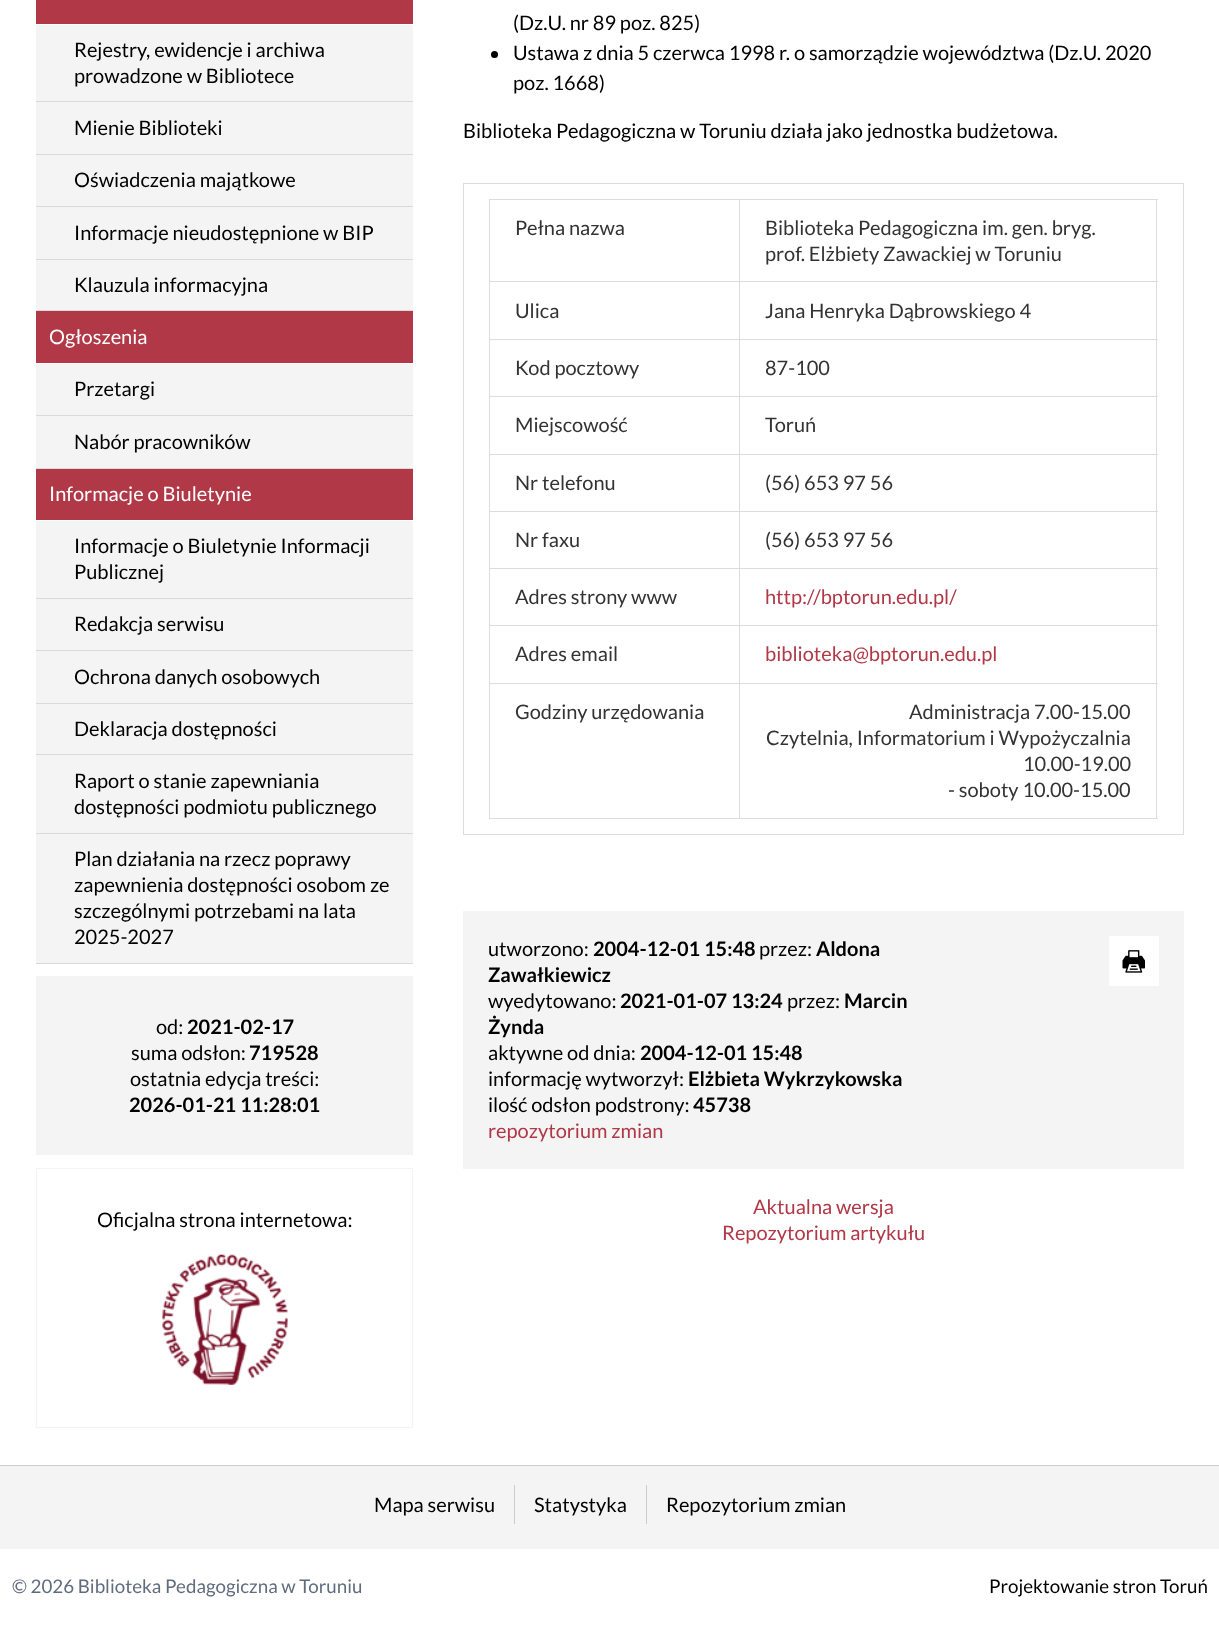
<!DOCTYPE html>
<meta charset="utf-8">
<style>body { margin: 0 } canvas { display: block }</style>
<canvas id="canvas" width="1219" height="1630"></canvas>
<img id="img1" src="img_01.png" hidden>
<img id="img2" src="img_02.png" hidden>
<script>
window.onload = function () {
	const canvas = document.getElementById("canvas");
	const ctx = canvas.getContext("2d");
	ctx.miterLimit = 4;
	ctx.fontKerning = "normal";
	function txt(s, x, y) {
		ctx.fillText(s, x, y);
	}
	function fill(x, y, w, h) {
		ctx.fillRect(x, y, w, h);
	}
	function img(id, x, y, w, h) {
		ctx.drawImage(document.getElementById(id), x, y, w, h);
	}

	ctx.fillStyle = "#FFFFFF";
	fill(0, 0, 1219, 1630);
	ctx.fillStyle = "#B13847";
	fill(36, 0, 377, 24);
	ctx.fillStyle = "#F4F4F4";
	fill(36, 25, 377, 129);
	ctx.fillStyle = "#DADADA";
	fill(36, 101, 377, 1);
	fill(36, 154, 377, 1);
	ctx.fillStyle = "#F4F4F4";
	fill(36, 155, 377, 104);
	ctx.fillStyle = "#DADADA";
	fill(36, 206, 377, 1);
	fill(36, 259, 377, 1);
	ctx.fillStyle = "#F4F4F4";
	fill(36, 260, 377, 50);
	ctx.fillStyle = "#DADADA";
	fill(36, 310, 377, 1);
	ctx.fillStyle = "#B13847";
	fill(36, 311, 377, 52);
	ctx.fillStyle = "#F4F4F4";
	fill(36, 364, 377, 51);
	ctx.fillStyle = "#DADADA";
	fill(36, 415, 377, 1);
	ctx.fillStyle = "#F4F4F4";
	fill(36, 416, 377, 52);
	ctx.fillStyle = "#DADADA";
	fill(36, 468, 377, 1);
	ctx.fillStyle = "#B13847";
	fill(36, 469, 377, 51);
	ctx.fillStyle = "#F4F4F4";
	fill(36, 521, 377, 77);
	ctx.fillStyle = "#DADADA";
	fill(36, 598, 377, 1);
	ctx.fillStyle = "#F4F4F4";
	fill(36, 599, 377, 51);
	ctx.fillStyle = "#DADADA";
	fill(36, 650, 377, 1);
	ctx.fillStyle = "#F4F4F4";
	fill(36, 651, 377, 52);
	ctx.fillStyle = "#DADADA";
	fill(36, 703, 377, 1);
	ctx.fillStyle = "#F4F4F4";
	fill(36, 704, 377, 50);
	ctx.fillStyle = "#DADADA";
	fill(36, 754, 377, 1);
	ctx.fillStyle = "#F4F4F4";
	fill(36, 755, 377, 78);
	ctx.fillStyle = "#DADADA";
	fill(36, 833, 377, 1);
	ctx.fillStyle = "#F4F4F4";
	fill(36, 834, 377, 129);
	ctx.fillStyle = "#DADADA";
	fill(36, 963, 377, 1);
	ctx.fillStyle = "#F4F4F4";
	fill(36, 976, 377, 179);
	ctx.strokeStyle = "#F4F4F4";
	ctx.strokeRect(36.5, 1168.5, 376, 259);
	img("img1", 162, 1254, 126, 131);
	ctx.fillStyle = "#000000";
	ctx.beginPath();
	ctx.arc(494.5, 54.5, 3.5, 0, Math.PI * 2);
	ctx.fill();
	ctx.fillStyle = "#DDDDDD";
	fill(463, 183, 721, 1);
	fill(1183, 183, 1, 652);
	fill(463, 834, 721, 1);
	fill(463, 183, 1, 652);
	fill(739, 199, 419, 1);
	fill(739, 281, 419, 1);
	fill(739, 339, 419, 1);
	fill(739, 396, 419, 1);
	fill(739, 454, 419, 1);
	fill(739, 511, 419, 1);
	fill(739, 568, 419, 1);
	fill(739, 625, 419, 1);
	fill(739, 683, 419, 1);
	fill(1156, 683, 1, 136);
	fill(739, 818, 419, 1);
	fill(739, 683, 1, 136);
	fill(489, 683, 251, 1);
	fill(739, 625, 1, 59);
	fill(489, 625, 251, 1);
	fill(739, 568, 1, 58);
	fill(489, 568, 251, 1);
	fill(739, 511, 1, 58);
	fill(489, 511, 251, 1);
	fill(739, 454, 1, 59);
	fill(489, 454, 251, 1);
	fill(739, 396, 1, 59);
	fill(489, 396, 251, 1);
	fill(739, 339, 1, 59);
	fill(489, 339, 251, 1);
	fill(739, 281, 1, 59);
	fill(489, 281, 251, 1);
	fill(739, 199, 1, 84);
	fill(489, 199, 251, 1);
	fill(489, 818, 251, 1);
	fill(489, 683, 1, 136);
	fill(489, 625, 1, 59);
	fill(489, 568, 1, 58);
	fill(489, 511, 1, 58);
	fill(489, 454, 1, 59);
	fill(489, 396, 1, 59);
	fill(489, 339, 1, 59);
	fill(489, 281, 1, 59);
	fill(489, 199, 1, 84);
	fill(1156, 625, 1, 59);
	fill(1156, 568, 1, 58);
	fill(1156, 511, 1, 58);
	fill(1156, 454, 1, 59);
	fill(1156, 396, 1, 59);
	fill(1156, 339, 1, 59);
	fill(1156, 281, 1, 59);
	fill(1156, 199, 1, 84);
	ctx.fillStyle = "#F4F4F4";
	fill(463, 911, 721, 258);
	ctx.fillStyle = "#FFFFFF";
	fill(1109, 936, 50, 50);
	img("img2", 1122, 950, 23, 23);
	ctx.fillStyle = "#F4F4F4";
	fill(0, 1466, 1219, 83);
	ctx.fillStyle = "#CCCCCC";
	fill(0, 1465, 1219, 1);
	fill(514, 1485, 1, 39);
	fill(646, 1485, 1, 39);
	ctx.font = "20px Lato";
	ctx.fillStyle = "#000000";
	txt("Rejestry, ewidencje i archiwa", 74, 57);
	txt("prowadzone w Bibliotece", 74, 83);
	txt("Mienie Biblioteki", 74, 135);
	txt("Oświadczenia majątkowe", 74, 187);
	txt("Informacje nieudostępnione w BIP", 74, 240);
	txt("Klauzula informacyjna", 74, 292);
	ctx.fillStyle = "#FFFFFF";
	txt("Ogłoszenia", 49, 344);
	ctx.fillStyle = "#000000";
	txt("Przetargi", 74, 396);
	txt("Nabór pracowników", 74, 449);
	ctx.fillStyle = "#FFFFFF";
	txt("Informacje o Biuletynie", 49, 501);
	ctx.fillStyle = "#000000";
	txt("Informacje o Biuletynie Informacji", 74, 553);
	txt("Publicznej", 74, 579);
	txt("Redakcja serwisu", 74, 631);
	txt("Ochrona danych osobowych", 74, 684);
	txt("Deklaracja dostępności", 74, 736);
	txt("Raport o stanie zapewniania", 74, 788);
	txt("dostępności podmiotu publicznego", 74, 814);
	txt("Plan działania na rzecz poprawy", 74, 866);
	txt("zapewnienia dostępności osobom ze", 74, 892);
	txt("szczególnymi potrzebami na lata", 74, 918);
	txt("2025-2027", 74, 944);
	txt("od:", 156, 1034);
	ctx.font = "bold 20px Lato";
	txt("2021-02-17", 187, 1034);
	ctx.font = "20px Lato";
	txt("suma odsłon:", 131, 1060);
	ctx.font = "bold 20px Lato";
	txt("719528", 249, 1060);
	ctx.font = "20px Lato";
	txt("ostatnia edycja treści:", 130, 1086);
	ctx.font = "bold 20px Lato";
	txt("2026-01-21 11:28:01", 129, 1112);
	ctx.font = "20px Lato";
	txt("Oficjalna strona internetowa:", 97, 1227);
	txt("(Dz.U. nr 89 poz. 825)", 513, 30);
	txt("Ustawa z dnia 5 czerwca 1998 r. o samorządzie województwa (Dz.U. 2020", 513, 60);
	txt("poz. 1668)", 513, 90);
	txt("Biblioteka Pedagogiczna w Toruniu działa jako jednostka budżetowa.", 463, 138);
	ctx.fillStyle = "#333333";
	txt("Pełna nazwa", 515, 235);
	txt("Biblioteka Pedagogiczna im. gen. bryg.", 765, 235);
	txt("prof. Elżbiety Zawackiej w Toruniu", 765, 261);
	txt("Ulica", 515, 318);
	txt("Jana Henryka Dąbrowskiego 4", 765, 318);
	txt("Kod pocztowy", 515, 375);
	txt("87-100", 765, 375);
	txt("Miejscowość", 515, 432);
	txt("Toruń", 765, 432);
	txt("Nr telefonu", 515, 490);
	txt("(56) 653 97 56", 765, 490);
	txt("Nr faxu", 515, 547);
	txt("(56) 653 97 56", 765, 547);
	txt("Adres strony www", 515, 604);
	ctx.fillStyle = "#B13847";
	txt("http://bptorun.edu.pl/", 765, 604);
	ctx.fillStyle = "#333333";
	txt("Adres email", 515, 661);
	ctx.fillStyle = "#B13847";
	txt("biblioteka@bptorun.edu.pl", 765, 661);
	ctx.fillStyle = "#333333";
	txt("Godziny urzędowania", 515, 719);
	txt("Administracja 7.00-15.00", 909, 719);
	txt("Czytelnia, Informatorium i Wypożyczalnia", 766, 745);
	txt("10.00-19.00", 1023, 771);
	txt("- soboty 10.00-15.00", 948, 797);
	ctx.fillStyle = "#000000";
	txt("utworzono:", 488, 956);
	ctx.font = "bold 20px Lato";
	txt("2004-12-01 15:48", 593, 956);
	ctx.font = "20px Lato";
	txt("przez:", 759, 956);
	ctx.font = "bold 20px Lato";
	txt("Aldona", 816, 956);
	txt("Zawałkiewicz", 488, 982);
	ctx.font = "20px Lato";
	txt("wyedytowano:", 488, 1008);
	ctx.font = "bold 20px Lato";
	txt("2021-01-07 13:24", 620, 1008);
	ctx.font = "20px Lato";
	txt("przez:", 787, 1008);
	ctx.font = "bold 20px Lato";
	txt("Marcin", 844, 1008);
	txt("Żynda", 488, 1034);
	ctx.font = "20px Lato";
	txt("aktywne od dnia:", 488, 1060);
	ctx.font = "bold 20px Lato";
	txt("2004-12-01 15:48", 640, 1060);
	ctx.font = "20px Lato";
	txt("informację wytworzył:", 488, 1086);
	ctx.font = "bold 20px Lato";
	txt("Elżbieta Wykrzykowska", 688, 1086);
	ctx.font = "20px Lato";
	txt("ilość odsłon podstrony:", 488, 1112);
	ctx.font = "bold 20px Lato";
	txt("45738", 693, 1112);
	ctx.font = "20px Lato";
	ctx.fillStyle = "#B13847";
	txt("repozytorium zmian", 488, 1138);
	txt("Aktualna wersja", 753, 1214);
	txt("Repozytorium artykułu", 722, 1240);
	ctx.fillStyle = "#000000";
	txt("Mapa serwisu", 374, 1512);
	txt("Statystyka", 534, 1512);
	txt("Repozytorium zmian", 666, 1512);
	ctx.font = "18.75px Lato";
	ctx.fillStyle = "#616C7E";
	txt("© 2026 Biblioteka Pedagogiczna w Toruniu", 12, 1593);
	ctx.fillStyle = "#000000";
	txt("Projektowanie stron Toruń", 989, 1593);
};
</script>
